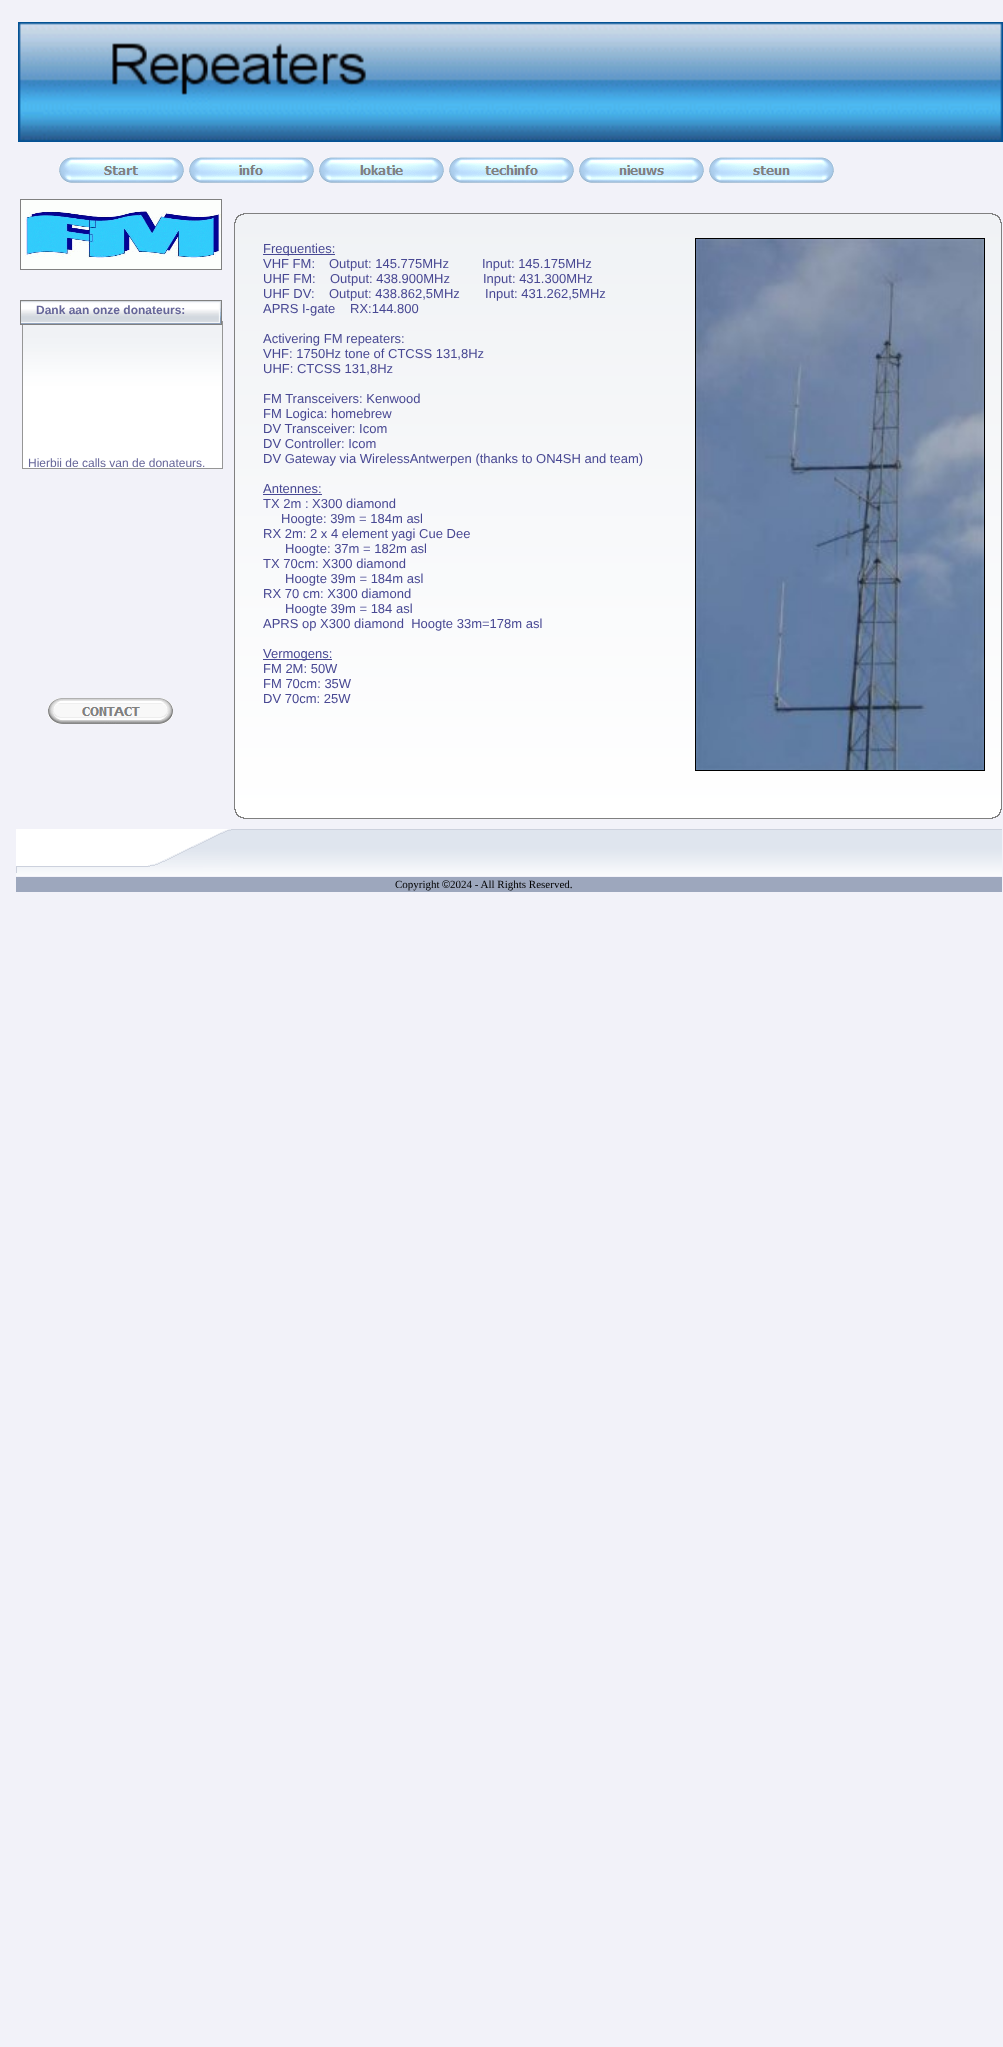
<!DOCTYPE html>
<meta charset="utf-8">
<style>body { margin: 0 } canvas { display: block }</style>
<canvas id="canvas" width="1003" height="2047"></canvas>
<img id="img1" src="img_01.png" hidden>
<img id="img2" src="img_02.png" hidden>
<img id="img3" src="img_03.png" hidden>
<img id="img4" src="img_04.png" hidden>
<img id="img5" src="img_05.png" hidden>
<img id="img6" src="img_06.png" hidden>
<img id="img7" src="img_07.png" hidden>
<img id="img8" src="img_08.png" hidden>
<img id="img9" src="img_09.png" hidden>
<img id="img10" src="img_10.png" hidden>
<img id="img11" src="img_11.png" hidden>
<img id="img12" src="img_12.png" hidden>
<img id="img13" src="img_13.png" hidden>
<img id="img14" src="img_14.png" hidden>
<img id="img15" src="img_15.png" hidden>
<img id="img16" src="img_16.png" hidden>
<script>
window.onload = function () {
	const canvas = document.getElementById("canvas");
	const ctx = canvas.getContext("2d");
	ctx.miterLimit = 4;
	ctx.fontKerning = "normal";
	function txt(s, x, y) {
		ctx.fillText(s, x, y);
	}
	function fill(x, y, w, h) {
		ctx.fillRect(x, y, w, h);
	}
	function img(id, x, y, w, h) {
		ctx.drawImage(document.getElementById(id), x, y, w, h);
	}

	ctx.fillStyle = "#F2F2F9";
	fill(0, 0, 1003, 2047);
	img("img1", 18, 22, 985, 120);
	img("img2", 59, 157, 125, 26);
	img("img3", 189, 157, 125, 26);
	img("img4", 319, 157, 125, 26);
	img("img5", 449, 157, 125, 26);
	img("img6", 579, 157, 125, 26);
	img("img7", 709, 157, 125, 26);
	ctx.strokeStyle = "#808080";
	ctx.strokeRect(20.5, 199.5, 201, 70);
	img("img8", 21, 200, 200, 69);
	img("img9", 234, 213, 768, 606);
	ctx.strokeStyle = "#969696";
	ctx.strokeRect(22.5, 321.5, 200, 147);
	ctx.strokeStyle = "#808080";
	ctx.strokeRect(20.5, 300.5, 201, 24);
	img("img10", 21, 301, 200, 23);
	ctx.fillStyle = "#484893";
	fill(263, 254, 72, 1);
	fill(263, 494, 59, 1);
	fill(263, 659, 69, 1);
	ctx.strokeStyle = "#000000";
	ctx.strokeRect(695.5, 238.5, 289, 532);
	img("img11", 696, 239, 288, 531);
	img("img12", 23, 325, 199, 143);
	img("img13", 48, 698, 125, 26);
	img("img14", 16, 829, 187, 47);
	img("img15", 203, 829, 28, 47);
	img("img16", 231, 829, 771, 47);
	ctx.fillStyle = "#9DA7BD";
	fill(16, 877, 986, 15);
	ctx.font = "13px Liberation Sans";
	ctx.fillStyle = "#484893";
	txt("Frequenties:", 263, 253);
	txt("VHF FM:", 263, 268);
	txt("Output: 145.775MHz", 329, 268);
	txt("Input: 145.175MHz", 482, 268);
	txt("UHF FM:", 263, 283);
	txt("Output: 438.900MHz", 330, 283);
	txt("Input: 431.300MHz", 483, 283);
	txt("UHF DV:", 263, 298);
	txt("Output: 438.862,5MHz       Input: 431.262,5MHz", 329, 298);
	txt("APRS I-gate", 263, 313);
	txt("RX:144.800", 350, 313);
	txt("Activering FM repeaters:", 263, 343);
	txt("VHF: 1750Hz tone of CTCSS 131,8Hz", 263, 358);
	txt("UHF: CTCSS 131,8Hz", 263, 373);
	txt("FM Transceivers: Kenwood", 263, 403);
	txt("FM Logica: homebrew", 263, 418);
	txt("DV Transceiver: Icom", 263, 433);
	txt("DV Controller: Icom", 263, 448);
	txt("DV Gateway via WirelessAntwerpen (thanks to ON4SH and team)", 263, 463);
	txt("Antennes:", 263, 493);
	txt("TX 2m : X300 diamond", 263, 508);
	txt("Hoogte: 39m = 184m asl", 281, 523);
	txt("RX 2m: 2 x 4 element yagi Cue Dee", 263, 538);
	txt("Hoogte: 37m = 182m asl", 285, 553);
	txt("TX 70cm: X300 diamond", 263, 568);
	txt("Hoogte 39m = 184m asl", 285, 583);
	txt("RX 70 cm: X300 diamond", 263, 598);
	txt("Hoogte 39m = 184 asl", 285, 613);
	txt("APRS op X300 diamond  Hoogte 33m=178m asl", 263, 628);
	txt("Vermogens:", 263, 658);
	txt("FM 2M: 50W", 263, 673);
	txt("FM 70cm: 35W", 263, 688);
	txt("DV 70cm: 25W", 263, 703);
	ctx.font = "bold 12px Liberation Sans";
	ctx.fillStyle = "#666699";
	txt("Dank aan onze donateurs:", 36, 314);
	ctx.save();
	ctx.beginPath();
	ctx.rect(28, 334, 178, 133);
	ctx.clip();
	ctx.font = "12px Liberation Sans";
	txt("Hierbij de calls van de donateurs.", 28, 467);
	ctx.restore();
	ctx.font = "11px Liberation Serif";
	ctx.fillStyle = "#000000";
	txt("Copyright", 395, 888);
	ctx.font = "11px Liberation Sans";
	txt("©", 442, 888);
	ctx.font = "11px Liberation Serif";
	txt("2024 - All Rights Reserved.", 450, 888);
};
</script>
